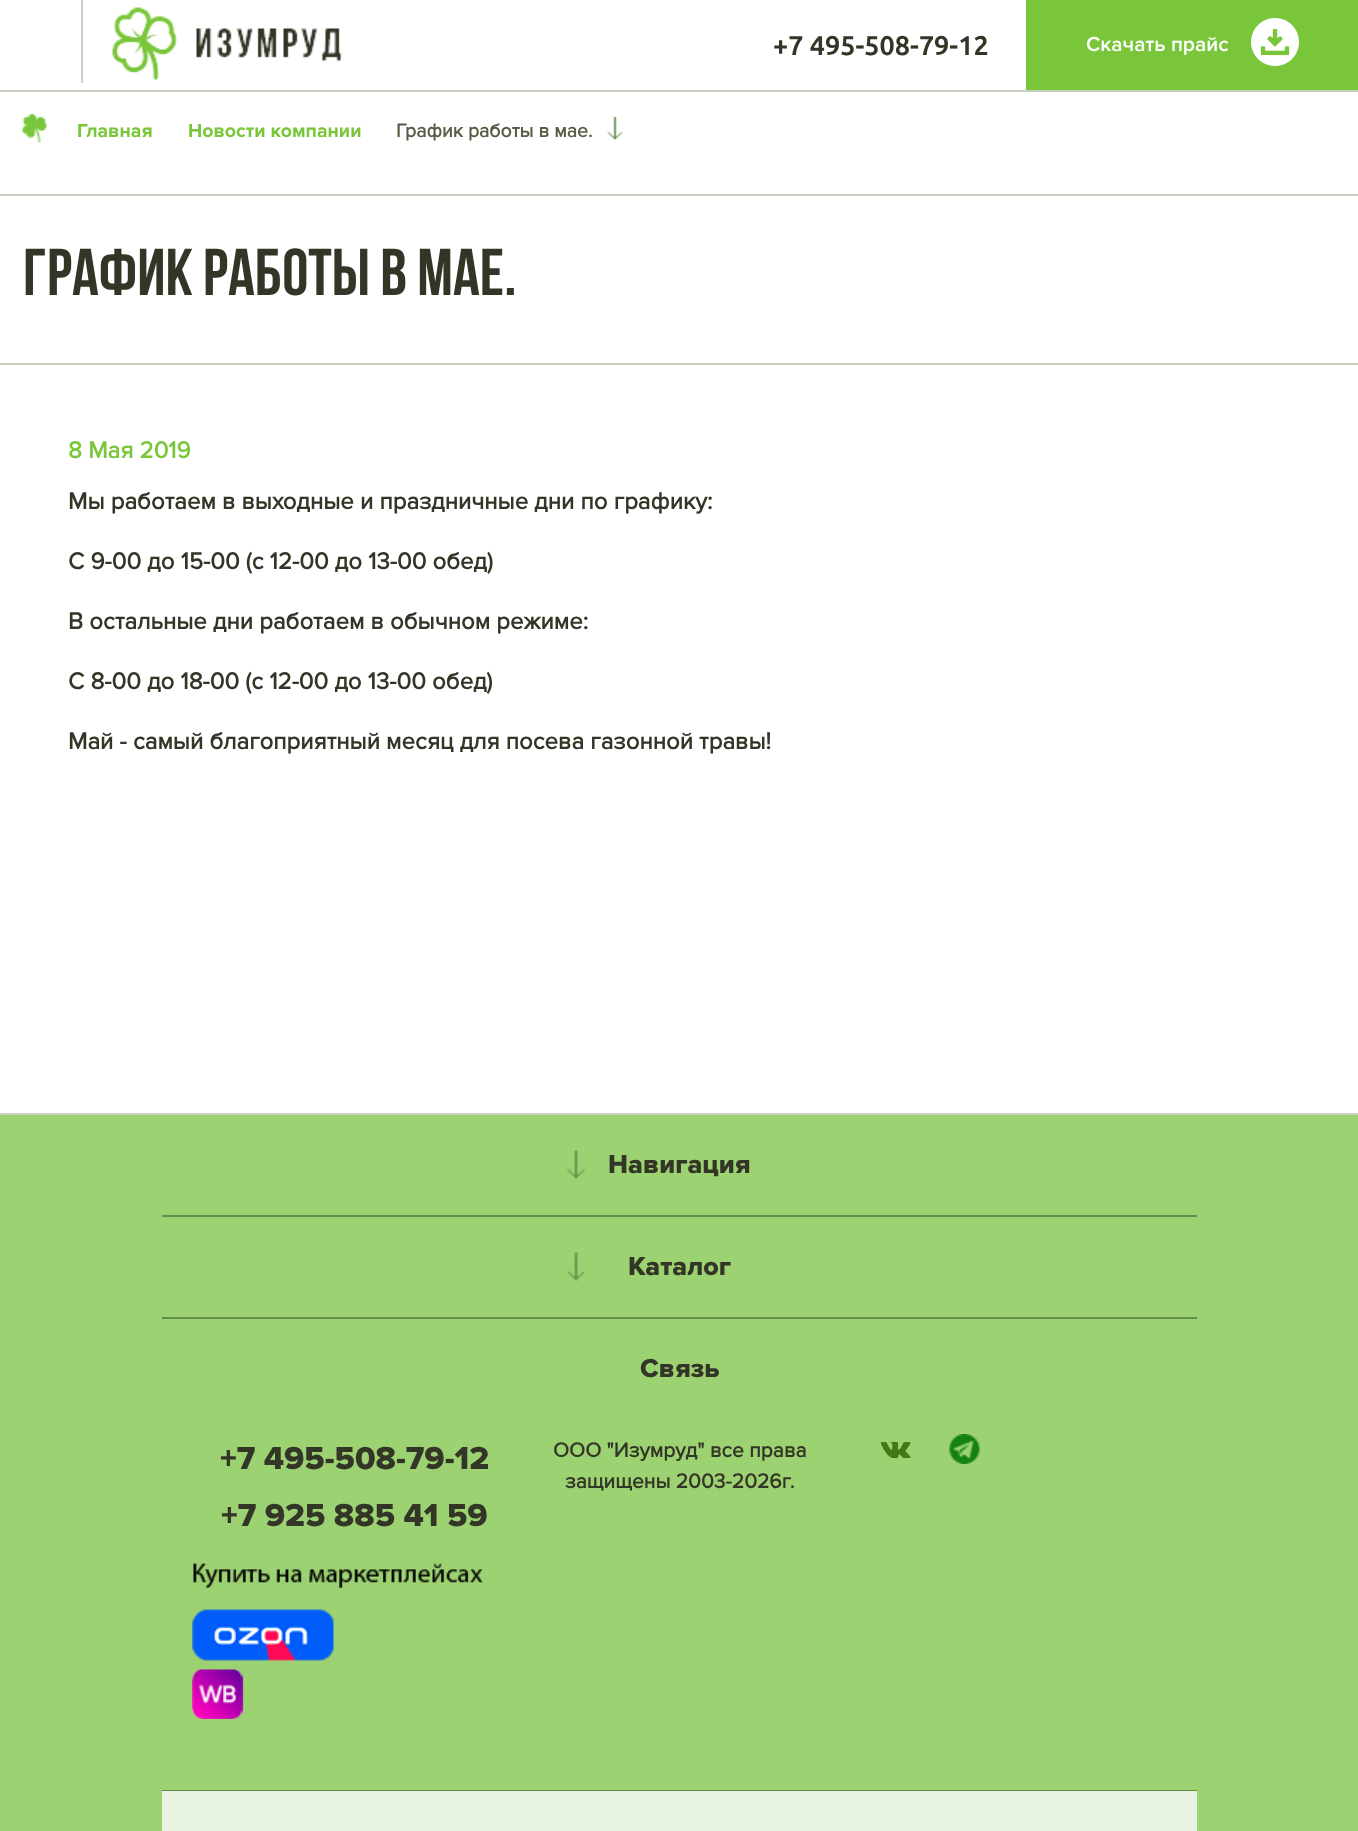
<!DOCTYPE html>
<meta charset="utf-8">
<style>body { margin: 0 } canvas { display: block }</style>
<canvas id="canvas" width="1358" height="1831"></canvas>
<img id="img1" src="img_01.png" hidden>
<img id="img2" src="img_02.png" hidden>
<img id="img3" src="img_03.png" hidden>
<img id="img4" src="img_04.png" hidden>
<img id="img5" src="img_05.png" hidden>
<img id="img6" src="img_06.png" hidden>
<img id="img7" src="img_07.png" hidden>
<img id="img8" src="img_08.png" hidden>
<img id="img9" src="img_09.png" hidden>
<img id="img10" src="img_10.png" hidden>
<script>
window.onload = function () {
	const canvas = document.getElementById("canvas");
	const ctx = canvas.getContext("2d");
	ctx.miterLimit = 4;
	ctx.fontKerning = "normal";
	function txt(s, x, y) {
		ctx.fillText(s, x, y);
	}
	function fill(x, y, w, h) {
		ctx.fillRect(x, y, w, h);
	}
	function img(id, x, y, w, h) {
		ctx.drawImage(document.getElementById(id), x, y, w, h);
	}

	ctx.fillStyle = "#FFFFFF";
	fill(0, 0, 1358, 1831);
	ctx.fillStyle = "#CAD2C4";
	fill(81, 0, 2, 83);
	img("img1", 112, 7, 230, 73);
	ctx.fillStyle = "#79C63B";
	fill(1026, 0, 332, 90);
	img("img2", 1251, 18, 48, 48);
	ctx.fillStyle = "#C6CEC0";
	fill(0, 90, 1358, 2);
	ctx.fillStyle = "#CAD2C4";
	fill(0, 194, 1358, 2);
	img("img3", 22, 114, 25, 29);
	img("img4", 607, 117, 16, 23);
	ctx.fillStyle = "#C6CEC0";
	fill(0, 363, 1358, 2);
	ctx.fillStyle = "#CAD2C4";
	fill(0, 1113, 1358, 2);
	ctx.fillStyle = "#9DD272";
	fill(0, 1115, 1358, 716);
	ctx.fillStyle = "#678D4C";
	fill(162, 1215, 1035, 2);
	img("img5", 567, 1150, 18, 29);
	fill(162, 1317, 1035, 2);
	img("img5", 567, 1252, 18, 29);
	fill(162, 1790, 1035, 1);
	img("img6", 193, 1563, 290, 26);
	img("img7", 192, 1609, 142, 52);
	img("img8", 192, 1669, 52, 50);
	img("img9", 881, 1442, 30, 16);
	img("img10", 949, 1434, 31, 30);
	ctx.fillStyle = "#E8F2E1";
	fill(162, 1791, 1035, 40);
	ctx.font = "bold 27px Ubuntu";
	ctx.fillStyle = "#333627";
	txt("+7 495-508-79-12", 773, 55);
	ctx.font = "600 21px Proxima Nova";
	ctx.fillStyle = "#FFFFFF";
	txt("Скачать прайс", 1086, 51);
	ctx.font = "bold 19.5px 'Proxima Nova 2'";
	ctx.fillStyle = "#79C63B";
	txt("Главная", 77, 137);
	txt("Новости компании", 188, 137);
	ctx.font = "bold 19.5px Proxima Nova";
	ctx.fillStyle = "#575C45";
	txt("График работы в мае.", 396, 137);
	ctx.font = "bold 66px Bebas Neue";
	ctx.fillStyle = "#333627";
	txt("ГРАФИК РАБОТЫ В МАЕ.", 23, 295);
	ctx.font = "bold 24px Proxima Nova";
	ctx.fillStyle = "#79C63B";
	txt("8 Мая 2019", 68, 458);
	ctx.fillStyle = "#333627";
	txt("Мы работаем в выходные и праздничные дни по графику:", 68, 509);
	txt("С 9-00 до 15-00 (с 12-00 до 13-00 обед)", 68, 569);
	txt("В остальные дни работаем в обычном режиме:", 68, 629);
	txt("С 8-00 до 18-00 (с 12-00 до 13-00 обед)", 68, 689);
	txt("Май - самый благоприятный месяц для посева газонной травы!", 68, 749);
	ctx.font = "800 27px Proxima Nova";
	txt("Навигация", 608, 1173);
	txt("Каталог", 628, 1275);
	txt("Связь", 640, 1377);
	ctx.font = "800 33px Proxima Nova";
	txt("+7 495-508-79-12", 220, 1469);
	txt("+7 925 885 41 59", 221, 1526);
	ctx.font = "bold 21px Proxima Nova";
	txt("ООО \"Изумруд\" все права", 553, 1457);
	txt("защищены 2003-2026г.", 565, 1488);
};
</script>
